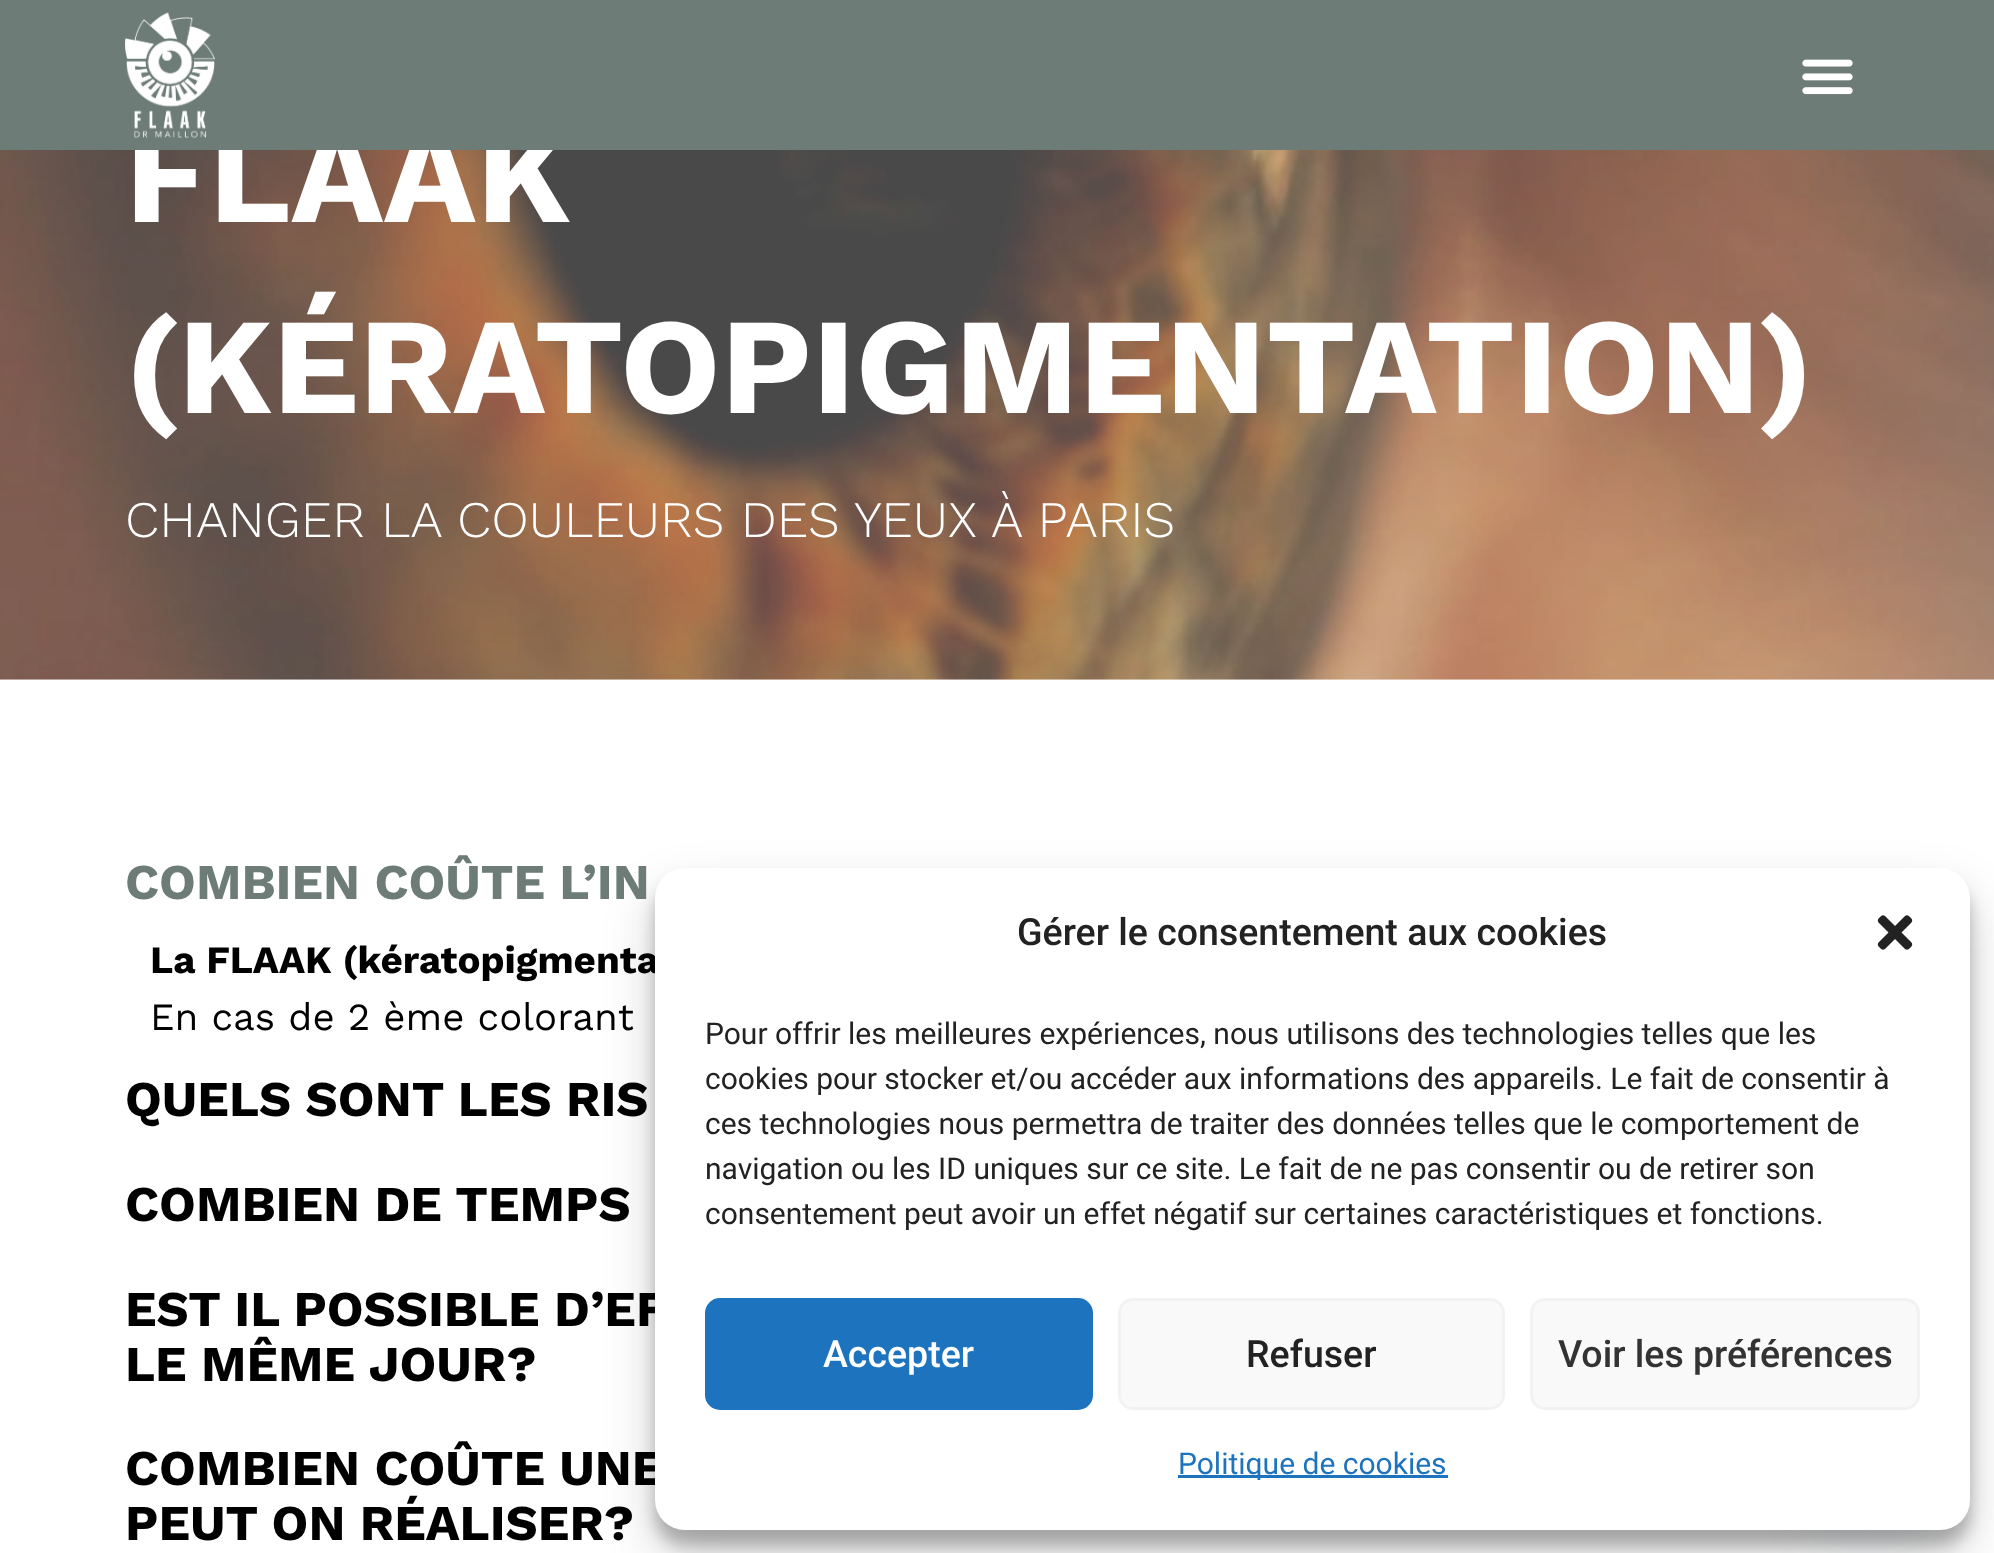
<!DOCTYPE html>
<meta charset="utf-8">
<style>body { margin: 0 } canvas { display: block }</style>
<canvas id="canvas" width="1994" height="1553"></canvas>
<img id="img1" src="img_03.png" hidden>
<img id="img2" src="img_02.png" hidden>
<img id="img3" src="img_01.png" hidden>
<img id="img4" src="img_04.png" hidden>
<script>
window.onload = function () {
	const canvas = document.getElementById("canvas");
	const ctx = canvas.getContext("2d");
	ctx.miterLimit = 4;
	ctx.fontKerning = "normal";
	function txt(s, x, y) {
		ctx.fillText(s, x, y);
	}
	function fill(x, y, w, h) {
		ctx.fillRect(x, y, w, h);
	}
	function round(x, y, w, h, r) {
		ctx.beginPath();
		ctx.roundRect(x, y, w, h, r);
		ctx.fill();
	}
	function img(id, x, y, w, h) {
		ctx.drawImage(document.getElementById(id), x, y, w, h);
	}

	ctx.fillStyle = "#F5F5F5";
	fill(0, 0, 1994, 1553);
	img("img1", 0, 150, 1994, 530);
	ctx.fillStyle = "#FFFFFF";
	fill(0, 680, 1994, 873);
	ctx.fillStyle = "rgba(0, 0, 0, 0.23)";
	ctx.filter = "blur(7.5px)";
	ctx.beginPath();
	ctx.roundRect(655, 883, 1315, 662, 30);
	ctx.fill();
	ctx.filter = "none";
	ctx.fillStyle = "rgba(0, 0, 0, 0.19)";
	ctx.filter = "blur(25px)";
	ctx.beginPath();
	ctx.roundRect(655, 893, 1315, 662, 30);
	ctx.fill();
	ctx.filter = "none";
	ctx.fillStyle = "rgba(73, 104, 126, 0.16)";
	ctx.filter = "blur(30px)";
	ctx.beginPath();
	ctx.roundRect(1813, 1423, 110, 110, 55);
	ctx.fill();
	ctx.filter = "none";
	ctx.font = "bold 136.75px Work Sans";
	ctx.fillStyle = "#FFFFFF";
	txt("FLAAK", 125, 222);
	ctx.fillStyle = "#6D7C76";
	fill(0, 0, 1994, 150);
	img("img2", 1802, 59, 51, 36);
	img("img3", 125, 12, 90, 126);
	ctx.fillStyle = "#FFFFFF";
	txt("(KÉRATOPIGMENTATION)", 125, 413);
	ctx.font = "300 51.3px Work Sans";
	txt("CHANGER LA COULEURS DES YEUX À PARIS", 125, 537);
	ctx.font = "bold 50px Work Sans";
	ctx.fillStyle = "#6D7C76";
	txt("COMBIEN COÛTE L’IN", 125, 899);
	ctx.font = "bold 38.5px Work Sans";
	ctx.fillStyle = "#000000";
	txt("La FLAAK (kératopigmenta", 150, 973);
	ctx.font = "38.5px Work Sans";
	txt("En cas de 2 ème colorant", 150, 1030);
	ctx.font = "bold 50px Work Sans";
	txt("QUELS SONT LES RIS", 125, 1116);
	txt("COMBIEN DE TEMPS", 125, 1221);
	txt("EST IL POSSIBLE D’EF", 125, 1326);
	txt("LE MÊME JOUR?", 125, 1381);
	txt("COMBIEN COÛTE UNE", 125, 1485);
	txt("PEUT ON RÉALISER?", 125, 1540);
	ctx.fillStyle = "#FFFFFF";
	round(655, 868, 1315, 662, 30);
	ctx.font = "500 37.5px Roboto";
	ctx.fillStyle = "#222222";
	txt("Gérer le consentement aux cookies", 1017, 945);
	img("img4", 1877, 915, 36, 35);
	ctx.font = "30px Roboto";
	txt("Pour offrir les meilleures expériences, nous utilisons des technologies telles que les", 705, 1044);
	txt("cookies pour stocker et/ou accéder aux informations des appareils. Le fait de consentir à", 705, 1089);
	txt("ces technologies nous permettra de traiter des données telles que le comportement de", 705, 1134);
	txt("navigation ou les ID uniques sur ce site. Le fait de ne pas consentir ou de retirer son", 705, 1179);
	txt("consentement peut avoir un effet négatif sur certaines caractéristiques et fonctions.", 705, 1224);
	ctx.fillStyle = "#1E73BE";
	ctx.beginPath();
	ctx.roundRect(706.5, 1299.5, 385, 109, 13.5);
	ctx.fill();
	ctx.strokeStyle = "#1E73BE";
	ctx.lineWidth = 3;
	ctx.stroke();
	ctx.font = "500 37.5px Roboto";
	ctx.fillStyle = "#FFFFFF";
	txt("Accepter", 823, 1367);
	ctx.fillStyle = "#F9F9F9";
	ctx.beginPath();
	ctx.roundRect(1119.5, 1299.5, 384, 109, 13.5);
	ctx.fill();
	ctx.strokeStyle = "#F2F2F2";
	ctx.stroke();
	ctx.fillStyle = "#222222";
	txt("Refuser", 1246, 1367);
	ctx.fillStyle = "#F9F9F9";
	ctx.beginPath();
	ctx.roundRect(1531.5, 1299.5, 387, 109, 13.5);
	ctx.fill();
	ctx.stroke();
	ctx.fillStyle = "#333333";
	txt("Voir les préférences", 1558, 1367);
	ctx.fillStyle = "#1E73BE";
	fill(1178, 1475, 270, 3);
	ctx.font = "30px Roboto";
	txt("Politique de cookies", 1178, 1474);
};
</script>
